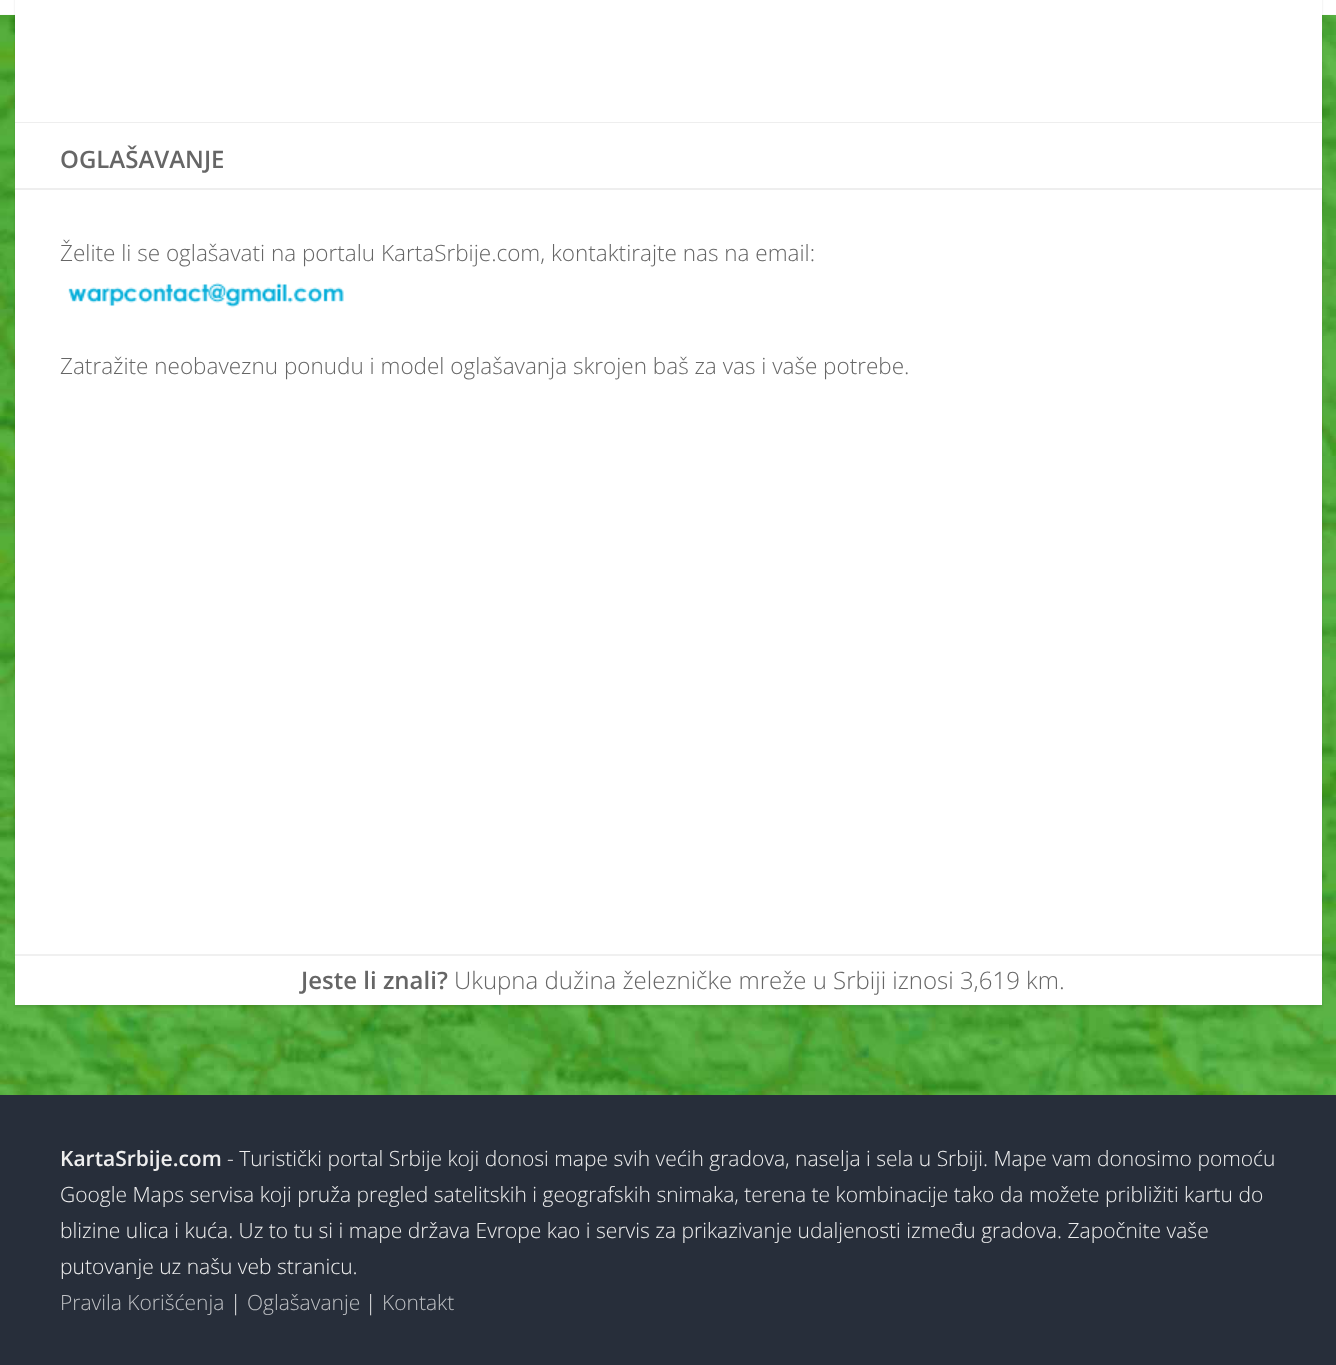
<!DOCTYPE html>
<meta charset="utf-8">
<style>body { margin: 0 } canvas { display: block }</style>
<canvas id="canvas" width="1336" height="1365"></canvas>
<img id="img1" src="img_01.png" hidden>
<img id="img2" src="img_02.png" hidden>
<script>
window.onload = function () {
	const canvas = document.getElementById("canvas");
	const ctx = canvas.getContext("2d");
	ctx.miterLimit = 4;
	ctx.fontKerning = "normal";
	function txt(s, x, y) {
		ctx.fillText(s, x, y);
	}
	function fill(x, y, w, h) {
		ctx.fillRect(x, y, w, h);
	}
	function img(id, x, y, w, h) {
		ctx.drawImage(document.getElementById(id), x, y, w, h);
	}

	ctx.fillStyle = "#FFFFFF";
	fill(0, 0, 1336, 1365);
	img("img1", 0, 14, 1336, 1081);
	ctx.fillStyle = "rgba(0, 0, 0, 0.1)";
	ctx.filter = "blur(1px)";
	ctx.beginPath();
	ctx.rect(15, -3, 1307, 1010);
	ctx.fill();
	ctx.filter = "none";
	ctx.fillStyle = "#FFFFFF";
	fill(15, 0, 1307, 1005);
	ctx.fillStyle = "#EEEEEE";
	fill(15, 122, 1307, 1);
	fill(15, 188, 1307, 2);
	img("img2", 68, 282, 276, 26);
	ctx.fillStyle = "#F0F0F0";
	fill(15, 954, 1307, 2);
	ctx.fillStyle = "#272E3A";
	fill(0, 1095, 1336, 270);
	ctx.font = "600 24px Open Sans";
	ctx.fillStyle = "#666666";
	txt("OGLAŠAVANJE", 60, 168);
	ctx.font = "300 22.5px Open Sans";
	txt("Želite li se oglašavati na portalu KartaSrbije.com, kontaktirajte nas na email:", 60, 261);
	txt("Zatražite neobaveznu ponudu i model oglašavanja skrojen baš za vas i vaše potrebe.", 60, 374);
	ctx.font = "600 24px Open Sans";
	txt("Jeste li znali?", 301, 989);
	ctx.font = "300 24px Open Sans";
	txt("Ukupna dužina železničke mreže u Srbiji iznosi 3,619 km.", 454, 989);
	ctx.font = "600 21px Open Sans";
	ctx.fillStyle = "#EEEEEE";
	txt("KartaSrbije.com", 60, 1166);
	ctx.font = "300 21px Open Sans";
	txt("- Turistički portal Srbije koji donosi mape svih većih gradova, naselja i sela u Srbiji. Mape vam donosimo pomoću", 227, 1166);
	txt("Google Maps servisa koji pruža pregled satelitskih i geografskih snimaka, terena te kombinacije tako da možete približiti kartu do", 60, 1202);
	txt("blizine ulica i kuća. Uz to tu si i mape država Evrope kao i servis za prikazivanje udaljenosti između gradova. Započnite vaše", 60, 1238);
	txt("putovanje uz našu veb stranicu.", 60, 1274);
	ctx.fillStyle = "#BEC0C4";
	txt("Pravila Korišćenja", 60, 1310);
	ctx.fillStyle = "#EEEEEE";
	txt("|", 230, 1310);
	ctx.fillStyle = "#BEC0C4";
	txt("Oglašavanje", 247, 1310);
	ctx.fillStyle = "#EEEEEE";
	txt("|", 365, 1310);
	ctx.fillStyle = "#BEC0C4";
	txt("Kontakt", 382, 1310);
};
</script>
